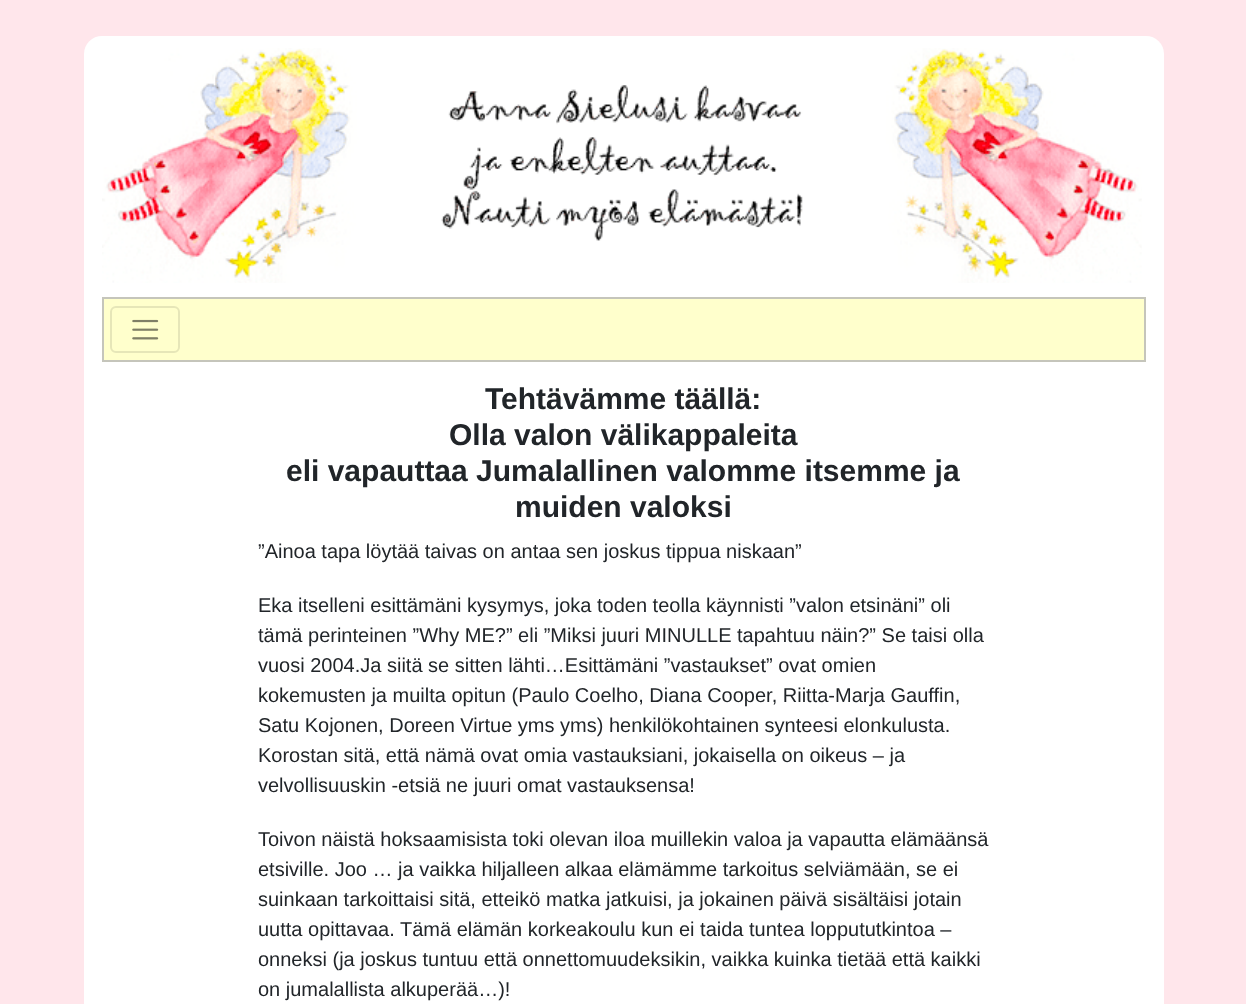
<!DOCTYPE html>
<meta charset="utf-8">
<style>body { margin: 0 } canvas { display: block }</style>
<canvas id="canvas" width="1246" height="1004"></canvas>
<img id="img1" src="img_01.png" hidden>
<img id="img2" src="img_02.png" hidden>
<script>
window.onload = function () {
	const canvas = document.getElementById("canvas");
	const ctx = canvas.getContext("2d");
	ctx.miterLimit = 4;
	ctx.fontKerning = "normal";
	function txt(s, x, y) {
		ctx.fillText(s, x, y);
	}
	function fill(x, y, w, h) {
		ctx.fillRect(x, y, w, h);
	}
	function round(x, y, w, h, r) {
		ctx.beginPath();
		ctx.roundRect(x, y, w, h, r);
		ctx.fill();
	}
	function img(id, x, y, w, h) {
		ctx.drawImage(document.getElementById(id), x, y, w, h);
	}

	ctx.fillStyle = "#FFE6EB";
	fill(0, 0, 1246, 1004);
	ctx.fillStyle = "#FFFFFF";
	round(84, 36, 1080, 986, 18);
	img("img1", 102, 48, 1040, 235);
	ctx.fillStyle = "#FFFFCC";
	ctx.beginPath();
	ctx.rect(103, 298, 1042, 63);
	ctx.fill();
	ctx.strokeStyle = "#C5C5BB";
	ctx.lineWidth = 2;
	ctx.stroke();
	ctx.beginPath();
	ctx.roundRect(111, 307, 68, 45, 5);
	ctx.strokeStyle = "#E6E6B8";
	ctx.stroke();
	img("img2", 132, 319, 27, 21);
	ctx.font = "bold 30px Liberation Sans";
	ctx.fillStyle = "#212529";
	txt("Tehtävämme täällä:", 485, 409);
	txt("Olla valon välikappaleita", 449, 445);
	txt("eli vapauttaa Jumalallinen valomme itsemme ja", 286, 481);
	txt("muiden valoksi", 515, 517);
	ctx.font = "20px Liberation Sans";
	txt("”Ainoa tapa löytää taivas on antaa sen joskus tippua niskaan”", 258, 558);
	txt("Eka itselleni esittämäni kysymys, joka toden teolla käynnisti ”valon etsinäni” oli", 258, 612);
	txt("tämä perinteinen ”Why ME?” eli ”Miksi juuri MINULLE tapahtuu näin?” Se taisi olla", 258, 642);
	txt("vuosi 2004.Ja siitä se sitten lähti…Esittämäni ”vastaukset” ovat omien", 258, 672);
	txt("kokemusten ja muilta opitun (Paulo Coelho, Diana Cooper, Riitta-Marja Gauffin,", 258, 702);
	txt("Satu Kojonen, Doreen Virtue yms yms) henkilökohtainen synteesi elonkulusta.", 258, 732);
	txt("Korostan sitä, että nämä ovat omia vastauksiani, jokaisella on oikeus – ja", 258, 762);
	txt("velvollisuuskin -etsiä ne juuri omat vastauksensa!", 258, 792);
	txt("Toivon näistä hoksaamisista toki olevan iloa muillekin valoa ja vapautta elämäänsä", 258, 846);
	txt("etsiville. Joo … ja vaikka hiljalleen alkaa elämämme tarkoitus selviämään, se ei", 258, 876);
	txt("suinkaan tarkoittaisi sitä, etteikö matka jatkuisi, ja jokainen päivä sisältäisi jotain", 258, 906);
	txt("uutta opittavaa. Tämä elämän korkeakoulu kun ei taida tuntea loppututkintoa –", 258, 936);
	txt("onneksi (ja joskus tuntuu että onnettomuudeksikin, vaikka kuinka tietää että kaikki", 258, 966);
	txt("on jumalallista alkuperää…)!", 258, 996);
};
</script>
